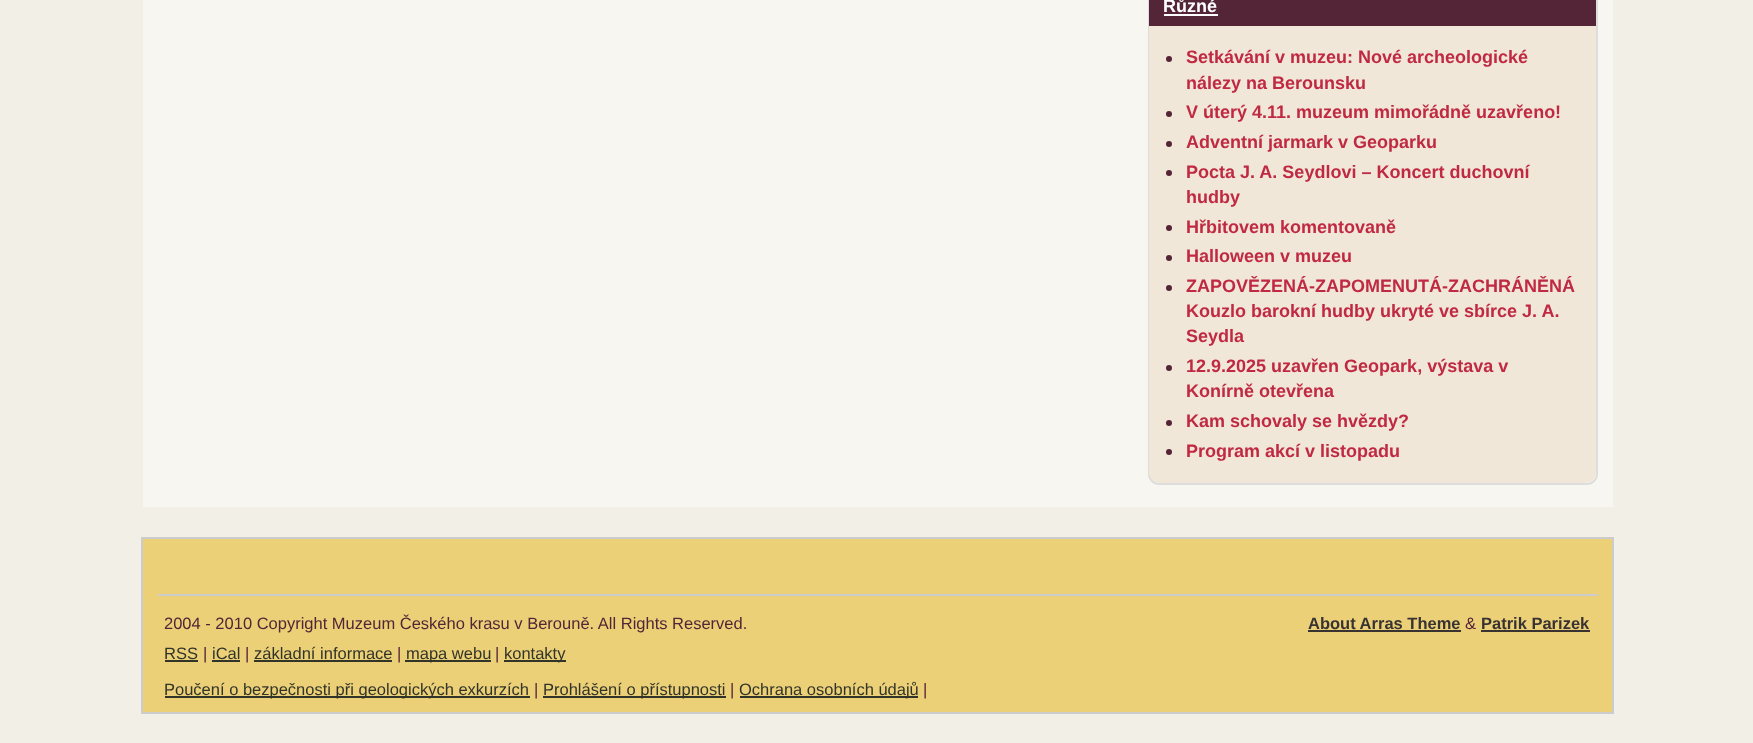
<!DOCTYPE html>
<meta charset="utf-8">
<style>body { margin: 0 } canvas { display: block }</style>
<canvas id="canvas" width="1753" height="743"></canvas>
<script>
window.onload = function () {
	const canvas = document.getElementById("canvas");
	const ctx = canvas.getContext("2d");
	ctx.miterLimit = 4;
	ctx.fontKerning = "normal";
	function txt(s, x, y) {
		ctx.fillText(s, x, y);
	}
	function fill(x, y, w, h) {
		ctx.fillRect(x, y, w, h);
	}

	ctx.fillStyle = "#F1EFE6";
	fill(0, 0, 1753, 743);
	ctx.fillStyle = "#F7F6F0";
	fill(143, 0, 1470, 507);
	ctx.beginPath();
	ctx.roundRect(1149, -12, 448, 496, 10);
	ctx.strokeStyle = "#DDDDDD";
	ctx.lineWidth = 2;
	ctx.stroke();
	ctx.fillStyle = "#542437";
	fill(1149, 0, 447, 26);
	ctx.fillStyle = "#FFFFFF";
	fill(1164, 14, 54, 2);
	ctx.fillStyle = "#F1E7D8";
	ctx.beginPath();
	ctx.roundRect(1149, 26, 447, 457, [0, 0, 11, 11]);
	ctx.fill();
	ctx.fillStyle = "#542437";
	ctx.beginPath();
	ctx.arc(1169, 59, 3, 0, Math.PI * 2);
	ctx.fill();
	ctx.beginPath();
	ctx.arc(1169, 114, 3, 0, Math.PI * 2);
	ctx.fill();
	ctx.beginPath();
	ctx.arc(1169, 144, 3, 0, Math.PI * 2);
	ctx.fill();
	ctx.beginPath();
	ctx.arc(1169, 173, 3, 0, Math.PI * 2);
	ctx.fill();
	ctx.beginPath();
	ctx.arc(1169, 228, 3, 0, Math.PI * 2);
	ctx.fill();
	ctx.beginPath();
	ctx.arc(1169, 258, 3, 0, Math.PI * 2);
	ctx.fill();
	ctx.beginPath();
	ctx.arc(1169, 288, 3, 0, Math.PI * 2);
	ctx.fill();
	ctx.beginPath();
	ctx.arc(1169, 368, 3, 0, Math.PI * 2);
	ctx.fill();
	ctx.beginPath();
	ctx.arc(1169, 423, 3, 0, Math.PI * 2);
	ctx.fill();
	ctx.beginPath();
	ctx.arc(1169, 452, 3, 0, Math.PI * 2);
	ctx.fill();
	ctx.fillStyle = "#ECD078";
	ctx.beginPath();
	ctx.rect(142, 538, 1471, 175);
	ctx.fill();
	ctx.strokeStyle = "#CCCCCC";
	ctx.stroke();
	ctx.fillStyle = "#CCCCCC";
	fill(158, 594, 1440, 2);
	ctx.fillStyle = "#383332";
	fill(1308, 630, 153, 2);
	fill(1481, 630, 109, 2);
	ctx.fillStyle = "#313428";
	fill(165, 660, 33, 2);
	fill(212, 660, 28, 2);
	fill(254, 660, 138, 2);
	fill(405, 660, 86, 2);
	fill(504, 660, 62, 2);
	fill(165, 696, 365, 2);
	fill(543, 696, 183, 2);
	fill(740, 696, 178, 2);
	ctx.font = "bold 18px Liberation Sans";
	ctx.fillStyle = "#FFFFFF";
	txt("Různé", 1163, 12);
	ctx.fillStyle = "#C02942";
	txt("Setkávání v muzeu: Nové archeologické", 1186, 63);
	txt("nálezy na Berounsku", 1186, 89);
	txt("V úterý 4.11. muzeum mimořádně uzavřeno!", 1186, 118);
	txt("Adventní jarmark v Geoparku", 1186, 148);
	txt("Pocta J. A. Seydlovi – Koncert duchovní", 1186, 178);
	txt("hudby", 1186, 203);
	txt("Hřbitovem komentovaně", 1186, 233);
	txt("Halloween v muzeu", 1186, 262);
	txt("ZAPOVĚZENÁ-ZAPOMENUTÁ-ZACHRÁNĚNÁ", 1186, 292);
	txt("Kouzlo barokní hudby ukryté ve sbírce J. A.", 1186, 317);
	txt("Seydla", 1186, 342);
	txt("12.9.2025 uzavřen Geopark, výstava v", 1186, 372);
	txt("Konírně otevřena", 1186, 397);
	txt("Kam schovaly se hvězdy?", 1186, 427);
	txt("Program akcí v listopadu", 1186, 457);
	ctx.font = "16.5px Liberation Sans";
	ctx.fillStyle = "#542437";
	txt("2004 - 2010 Copyright Muzeum Českého krasu v Berouně. All Rights Reserved.", 164, 629);
	ctx.font = "bold 16.5px Liberation Sans";
	ctx.fillStyle = "#383332";
	txt("About Arras Theme", 1308, 629);
	ctx.font = "16.5px Liberation Sans";
	ctx.fillStyle = "#542437";
	txt("&", 1465, 629);
	ctx.font = "bold 16.5px Liberation Sans";
	ctx.fillStyle = "#383332";
	txt("Patrik Parizek", 1481, 629);
	ctx.font = "16.5px Liberation Sans";
	ctx.fillStyle = "#313428";
	txt("RSS", 164, 659);
	ctx.fillStyle = "#542437";
	txt("|", 203, 659);
	ctx.fillStyle = "#313428";
	txt("iCal", 212, 659);
	ctx.fillStyle = "#542437";
	txt("|", 245, 659);
	ctx.fillStyle = "#313428";
	txt("základní informace", 254, 659);
	ctx.fillStyle = "#542437";
	txt("|", 397, 659);
	ctx.fillStyle = "#313428";
	txt("mapa webu", 406, 659);
	ctx.fillStyle = "#542437";
	txt("|", 495, 659);
	ctx.fillStyle = "#313428";
	txt("kontakty", 504, 659);
	txt("Poučení o bezpečnosti při geologických exkurzích", 164, 695);
	ctx.fillStyle = "#542437";
	txt("|", 534, 695);
	ctx.fillStyle = "#313428";
	txt("Prohlášení o přístupnosti", 543, 695);
	ctx.fillStyle = "#542437";
	txt("|", 730, 695);
	ctx.fillStyle = "#313428";
	txt("Ochrana osobních údajů", 739, 695);
	ctx.fillStyle = "#542437";
	txt("|", 923, 695);
};
</script>
